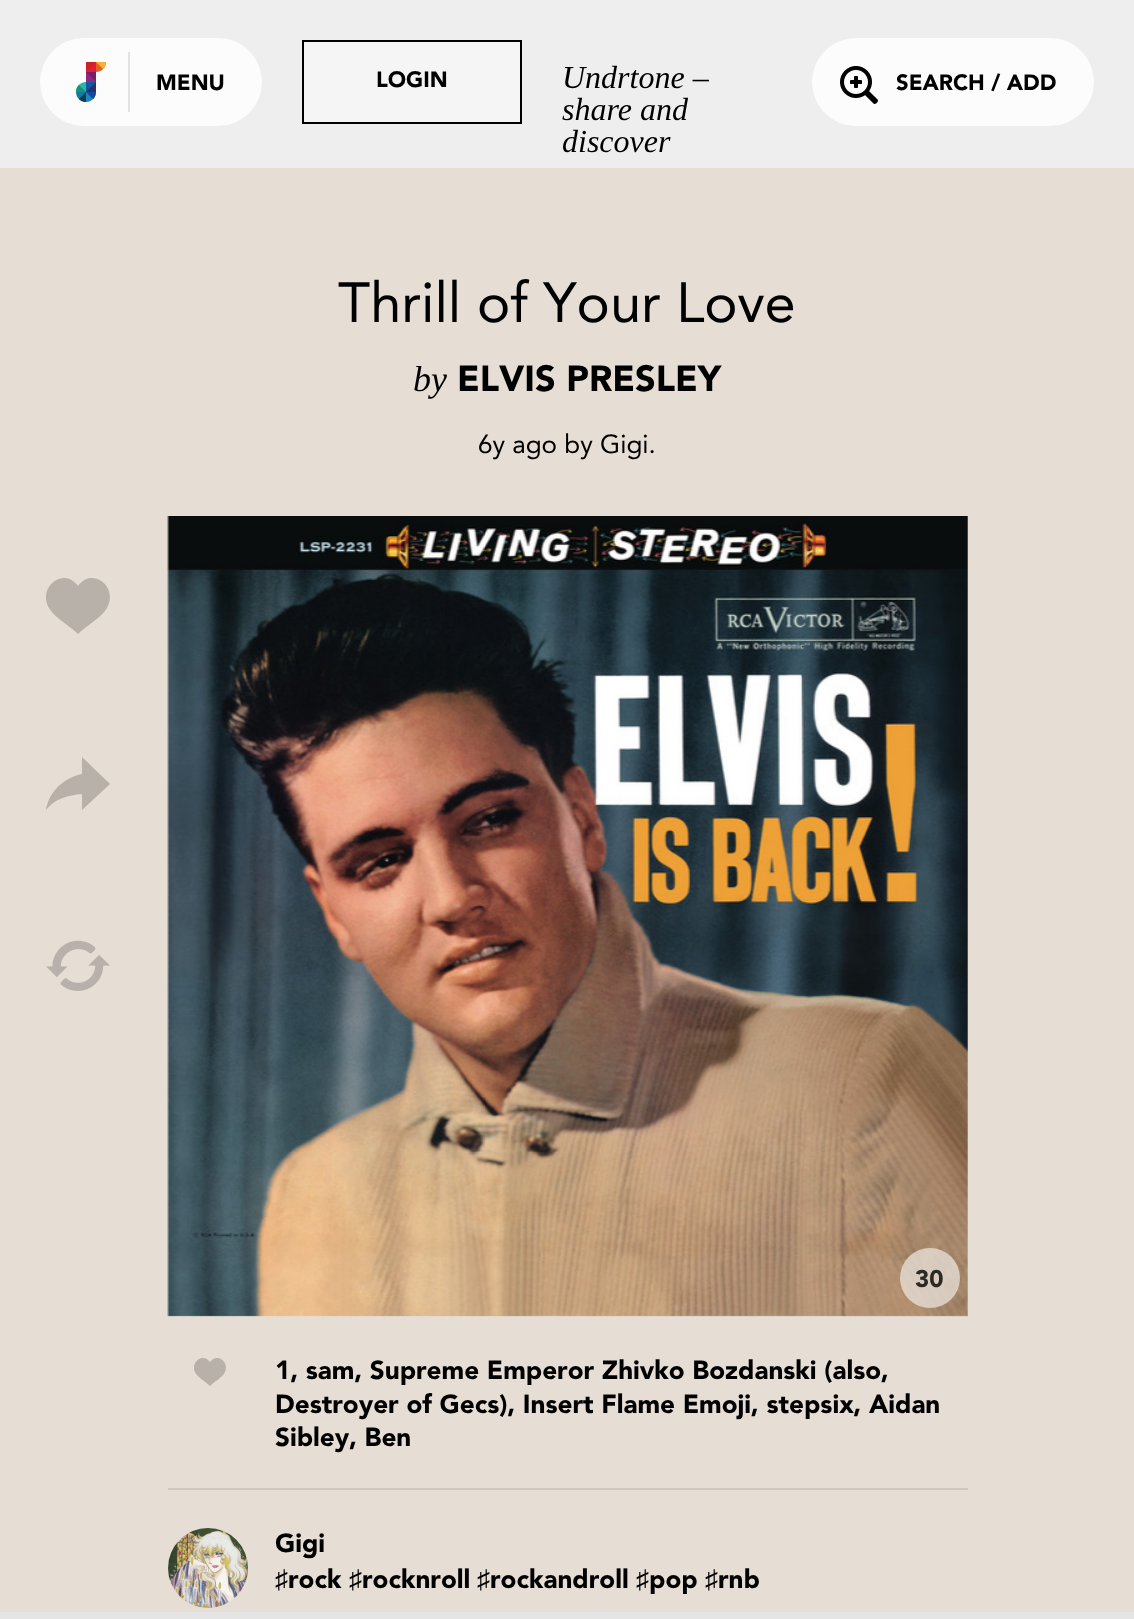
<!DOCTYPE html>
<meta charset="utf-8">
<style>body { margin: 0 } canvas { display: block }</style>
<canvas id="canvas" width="1134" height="1619"></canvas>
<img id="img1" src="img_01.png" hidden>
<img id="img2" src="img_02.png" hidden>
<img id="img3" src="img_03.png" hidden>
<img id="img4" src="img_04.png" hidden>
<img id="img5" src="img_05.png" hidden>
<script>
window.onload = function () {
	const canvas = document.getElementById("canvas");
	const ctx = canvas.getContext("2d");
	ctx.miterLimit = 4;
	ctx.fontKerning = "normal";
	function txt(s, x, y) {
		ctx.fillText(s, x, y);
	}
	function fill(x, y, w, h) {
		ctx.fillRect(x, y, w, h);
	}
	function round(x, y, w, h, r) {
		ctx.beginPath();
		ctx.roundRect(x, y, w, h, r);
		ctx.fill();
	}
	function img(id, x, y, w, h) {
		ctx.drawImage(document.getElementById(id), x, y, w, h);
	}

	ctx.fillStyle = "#E6DDD5";
	fill(0, 0, 1134, 1619);
	ctx.fillStyle = "#EEEEEE";
	fill(0, 0, 1134, 168);
	ctx.fillStyle = "#FCFCFC";
	round(40, 38, 222, 88, 44);
	img("img1", 76, 62, 30, 40);
	ctx.fillStyle = "#E3E3E3";
	fill(128, 52, 2, 60);
	ctx.fillStyle = "#F5F5F5";
	ctx.beginPath();
	ctx.rect(303, 41, 218, 82);
	ctx.fill();
	ctx.strokeStyle = "#000000";
	ctx.lineWidth = 2;
	ctx.stroke();
	ctx.fillStyle = "#FCFCFC";
	round(812, 38, 282, 88, 44);
	img("img2", 840, 66, 38, 38);
	ctx.fillStyle = "#B8B1AA";
	ctx.beginPath();
	ctx.moveTo(78, 586);
	ctx.bezierCurveTo(64, 566, 37, 587, 49, 608);
	ctx.bezierCurveTo(56, 619, 69, 625, 78, 634);
	ctx.bezierCurveTo(87, 625, 100, 619, 107, 608);
	ctx.bezierCurveTo(119, 587, 92, 566, 78, 586);
	ctx.closePath();
	ctx.fill();
	ctx.beginPath();
	ctx.moveTo(110, 784);
	ctx.lineTo(82, 757);
	ctx.lineTo(82, 774);
	ctx.bezierCurveTo(63, 778, 49, 792, 46, 810);
	ctx.bezierCurveTo(54, 799, 69, 795, 82, 794);
	ctx.lineTo(82, 810);
	ctx.closePath();
	ctx.fill();
	img("img3", 46, 940, 64, 51);
	img("img4", 167, 516, 801, 801);
	ctx.fillStyle = "rgba(230, 221, 213, 0.8)";
	ctx.beginPath();
	ctx.arc(930, 1278, 30, 0, Math.PI * 2);
	ctx.fill();
	ctx.fillStyle = "#B8B1AA";
	ctx.beginPath();
	ctx.moveTo(210, 1362);
	ctx.bezierCurveTo(203, 1352, 189.5, 1362.5, 195.5, 1373);
	ctx.bezierCurveTo(199, 1378.5, 205.5, 1381.5, 210, 1386);
	ctx.bezierCurveTo(214.5, 1381.5, 221, 1378.5, 224.5, 1373);
	ctx.bezierCurveTo(230.5, 1362.5, 217, 1352, 210, 1362);
	ctx.closePath();
	ctx.fill();
	ctx.fillStyle = "#CFC7C0";
	fill(168, 1488, 800, 2);
	ctx.fillStyle = "#E6E6D5";
	ctx.beginPath();
	ctx.arc(208, 1568, 40, 0, Math.PI * 2);
	ctx.fill();
	img("img5", 168, 1528, 80, 80);
	ctx.fillStyle = "#E5E5E5";
	fill(0, 1612, 1134, 7);
	ctx.font = "900 22px Avenir";
	ctx.fillStyle = "#000000";
	txt("MENU", 156, 90);
	txt("LOGIN", 376, 87);
	ctx.font = "italic 32px Liberation Serif";
	txt("Undrtone –", 562, 88);
	txt("share and", 562, 120);
	txt("discover", 562, 152);
	ctx.font = "900 22px Avenir";
	txt("SEARCH / ADD", 896, 90);
	ctx.font = "56px Avenir";
	txt("Thrill of Your Love", 338, 322);
	ctx.font = "italic 36px Liberation Serif";
	txt("by", 413, 391);
	ctx.font = "900 36px Avenir";
	txt("ELVIS PRESLEY", 457, 391);
	ctx.font = "26px Avenir";
	txt("6y ago by Gigi.", 478, 453);
	ctx.font = "900 24px Avenir";
	ctx.fillStyle = "#2B2926";
	txt("30", 915, 1287);
	ctx.font = "900 26px Avenir";
	ctx.fillStyle = "#000000";
	txt("1, sam, Supreme Emperor Zhivko Bozdanski (also,", 275, 1379);
	txt("Destroyer of Gecs), Insert Flame Emoji, stepsix, Aidan", 275, 1413);
	txt("Sibley, Ben", 275, 1446);
	txt("Gigi", 275, 1552);
	ctx.font = "26px Liberation Serif";
	txt("♯", 275, 1588);
	ctx.font = "900 26px Avenir";
	txt("rock", 288, 1588);
	ctx.font = "26px Liberation Serif";
	txt("♯", 349, 1588);
	ctx.font = "900 26px Avenir";
	txt("rocknroll", 362, 1588);
	ctx.font = "26px Liberation Serif";
	txt("♯", 477, 1588);
	ctx.font = "900 26px Avenir";
	txt("rockandroll", 490, 1588);
	ctx.font = "26px Liberation Serif";
	txt("♯", 636, 1588);
	ctx.font = "900 26px Avenir";
	txt("pop", 649, 1588);
	ctx.font = "26px Liberation Serif";
	txt("♯", 705, 1588);
	ctx.font = "900 26px Avenir";
	txt("rnb", 718, 1588);
};
</script>
